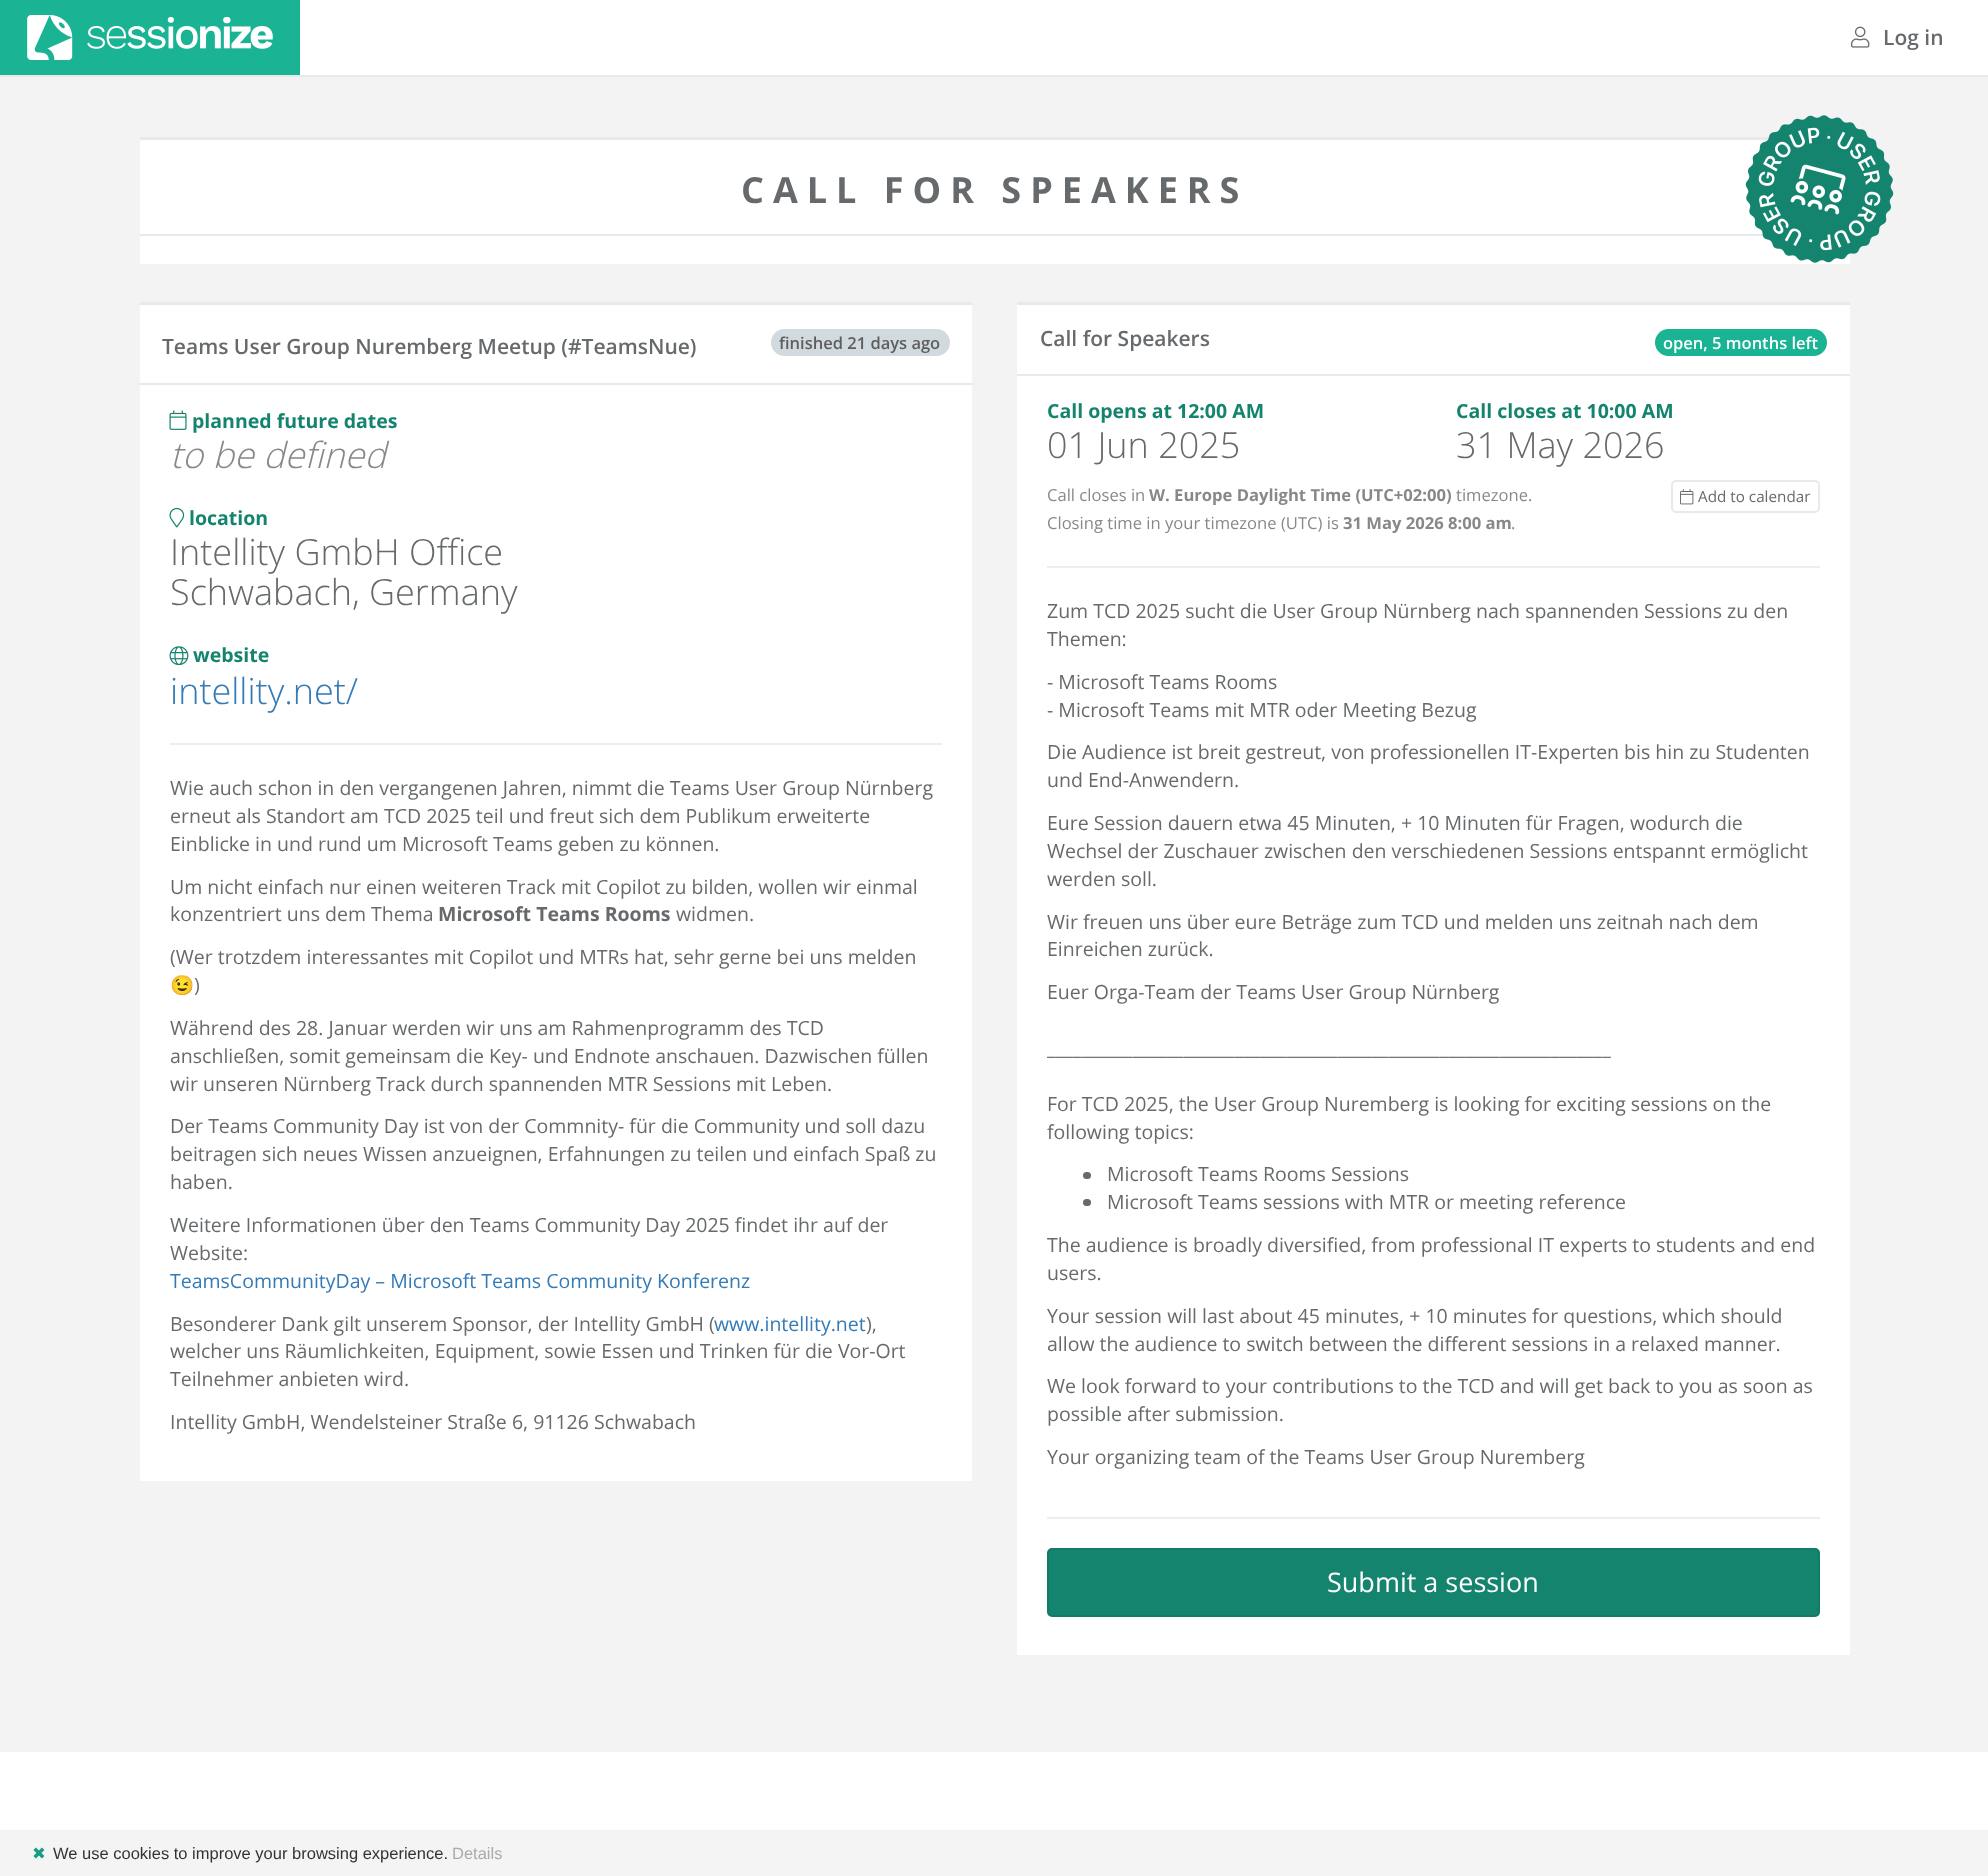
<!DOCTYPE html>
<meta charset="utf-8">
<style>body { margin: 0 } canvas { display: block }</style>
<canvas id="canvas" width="1988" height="1876"></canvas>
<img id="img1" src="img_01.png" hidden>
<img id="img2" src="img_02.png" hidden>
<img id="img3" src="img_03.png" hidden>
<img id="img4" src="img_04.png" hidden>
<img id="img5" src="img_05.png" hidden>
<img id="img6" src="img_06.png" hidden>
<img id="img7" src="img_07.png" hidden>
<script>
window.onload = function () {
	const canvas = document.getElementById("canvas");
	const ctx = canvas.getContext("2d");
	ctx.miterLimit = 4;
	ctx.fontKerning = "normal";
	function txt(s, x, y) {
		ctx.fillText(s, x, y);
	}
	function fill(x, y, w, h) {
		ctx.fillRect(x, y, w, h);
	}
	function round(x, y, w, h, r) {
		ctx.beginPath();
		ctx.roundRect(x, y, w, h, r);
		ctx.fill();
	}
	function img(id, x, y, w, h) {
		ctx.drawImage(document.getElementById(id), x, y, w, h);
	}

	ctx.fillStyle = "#FFFFFF";
	fill(0, 0, 1988, 1876);
	ctx.fillStyle = "#F3F3F4";
	fill(0, 77, 1988, 1675);
	ctx.fillStyle = "#E7EAEC";
	fill(0, 75, 1988, 2);
	ctx.fillStyle = "#1AB394";
	fill(0, 0, 300, 75);
	img("img1", 27, 15, 246, 45);
	img("img2", 1851, 26, 19, 22);
	ctx.fillStyle = "#FFFFFF";
	fill(140, 140, 1628, 94);
	ctx.fillStyle = "#E7EAEC";
	fill(140, 137, 1629, 3);
	ctx.fillStyle = "#FFFFFF";
	fill(140, 236, 1710, 28);
	ctx.fillStyle = "#E7EAEC";
	fill(140, 234, 1623, 2);
	img("img3", 1745, 115, 149, 148);
	ctx.fillStyle = "#FFFFFF";
	fill(140, 305, 832, 78);
	ctx.fillStyle = "#E7EAEC";
	fill(140, 302, 832, 3);
	ctx.fillStyle = "#D1DADE";
	round(771, 329, 179, 27, 13.5);
	ctx.fillStyle = "#FFFFFF";
	fill(140, 385, 832, 1096);
	ctx.fillStyle = "#E7EAEC";
	fill(140, 383, 832, 2);
	img("img4", 169, 410, 18, 20);
	img("img5", 169, 507, 16, 21);
	img("img6", 169, 646, 20, 20);
	ctx.fillStyle = "#EEEEEE";
	fill(170, 743, 772, 2);
	ctx.fillStyle = "#FFFFFF";
	fill(1017, 305, 833, 69);
	ctx.fillStyle = "#E7EAEC";
	fill(1017, 302, 833, 3);
	ctx.fillStyle = "#1AB394";
	round(1655, 329, 172, 27, 13.5);
	ctx.fillStyle = "#FFFFFF";
	fill(1017, 376, 833, 1279);
	ctx.fillStyle = "#E7EAEC";
	fill(1017, 374, 833, 2);
	ctx.beginPath();
	ctx.roundRect(1672, 481, 147, 31, 4);
	ctx.strokeStyle = "#E7EAEC";
	ctx.lineWidth = 2;
	ctx.stroke();
	img("img7", 1680, 489, 14, 16);
	ctx.fillStyle = "#EEEEEE";
	fill(1047, 566, 773, 2);
	ctx.fillStyle = "#676A6C";
	round(1083, 1172, 8, 7, 3.5);
	round(1083, 1199, 8, 7, 3.5);
	ctx.fillStyle = "#EEEEEE";
	fill(1047, 1517, 773, 2);
	ctx.fillStyle = "#15846E";
	ctx.beginPath();
	ctx.roundRect(1048, 1549, 771, 67, 4);
	ctx.fill();
	ctx.strokeStyle = "#137A66";
	ctx.stroke();
	ctx.fillStyle = "#F4F4F4";
	fill(0, 1830, 1988, 46);
	ctx.font = "600 21px Open Sans";
	ctx.fillStyle = "#676A6C";
	txt("Log in", 1883, 45);
	ctx.letterSpacing = "9px";
	ctx.font = "bold 36px Open Sans";
	txt("CALL FOR SPEAKERS", 741, 203);
	ctx.letterSpacing = "0px";
	ctx.font = "600 21px Open Sans";
	txt("Teams User Group Nuremberg Meetup (#TeamsNue)", 162, 354);
	ctx.font = "600 16.5px Open Sans";
	ctx.fillStyle = "#5E5E5E";
	txt("finished 21 days ago", 779, 349);
	ctx.font = "bold 19.5px Open Sans";
	ctx.fillStyle = "#15846E";
	txt("planned future dates", 192, 428);
	ctx.font = "italic 300 36px Open Sans";
	ctx.fillStyle = "#888888";
	txt("to be defined", 170, 468);
	ctx.font = "bold 19.5px Open Sans";
	ctx.fillStyle = "#15846E";
	txt("location", 189, 525);
	ctx.font = "300 36px Open Sans";
	ctx.fillStyle = "#676A6C";
	txt("Intellity GmbH Office", 170, 565);
	txt("Schwabach, Germany", 170, 605);
	ctx.font = "bold 19.5px Open Sans";
	ctx.fillStyle = "#15846E";
	txt("website", 193, 662);
	ctx.font = "300 36px Open Sans";
	ctx.fillStyle = "#337AB7";
	txt("intellity.net/", 170, 704);
	ctx.font = "19.5px Open Sans";
	ctx.fillStyle = "#676A6C";
	txt("Wie auch schon in den vergangenen Jahren, nimmt die Teams User Group Nürnberg", 170, 795);
	txt("erneut als Standort am TCD 2025 teil und freut sich dem Publikum erweiterte", 170, 823);
	txt("Einblicke in und rund um Microsoft Teams geben zu können.", 170, 851);
	txt("Um nicht einfach nur einen weiteren Track mit Copilot zu bilden, wollen wir einmal", 170, 894);
	txt("konzentriert uns dem Thema", 170, 921);
	ctx.font = "bold 19.5px Open Sans";
	txt("Microsoft Teams Rooms", 438, 921);
	ctx.font = "19.5px Open Sans";
	txt("widmen.", 676, 921);
	txt("(Wer trotzdem interessantes mit Copilot und MTRs hat, sehr gerne bei uns melden", 170, 964);
	ctx.font = "19.5px Noto Color Emoji";
	txt("😉", 170, 992);
	ctx.font = "19.5px Open Sans";
	txt(")", 194, 992);
	txt("Während des 28. Januar werden wir uns am Rahmenprogramm des TCD", 170, 1035);
	txt("anschließen, somit gemeinsam die Key- und Endnote anschauen. Dazwischen füllen", 170, 1063);
	txt("wir unseren Nürnberg Track durch spannenden MTR Sessions mit Leben.", 170, 1091);
	txt("Der Teams Community Day ist von der Commnity- für die Community und soll dazu", 170, 1133);
	txt("beitragen sich neues Wissen anzueignen, Erfahnungen zu teilen und einfach Spaß zu", 170, 1161);
	txt("haben.", 170, 1189);
	txt("Weitere Informationen über den Teams Community Day 2025 findet ihr auf der", 170, 1232);
	txt("Website:", 170, 1260);
	ctx.fillStyle = "#337AB7";
	txt("TeamsCommunityDay – Microsoft Teams Community Konferenz", 170, 1288);
	ctx.fillStyle = "#676A6C";
	txt("Besonderer Dank gilt unserem Sponsor, der Intellity GmbH (", 170, 1331);
	ctx.fillStyle = "#337AB7";
	txt("www.intellity.net", 714, 1331);
	ctx.fillStyle = "#676A6C";
	txt("),", 866, 1331);
	txt("welcher uns Räumlichkeiten, Equipment, sowie Essen und Trinken für die Vor-Ort", 170, 1358);
	txt("Teilnehmer anbieten wird.", 170, 1386);
	txt("Intellity GmbH, Wendelsteiner Straße 6, 91126 Schwabach", 170, 1429);
	ctx.font = "600 21px Open Sans";
	txt("Call for Speakers", 1040, 346);
	ctx.font = "600 16.5px Open Sans";
	ctx.fillStyle = "#FFFFFF";
	txt("open, 5 months left", 1663, 349);
	ctx.font = "bold 19.5px Open Sans";
	ctx.fillStyle = "#15846E";
	txt("Call opens at 12:00 AM", 1047, 418);
	ctx.font = "300 36px Open Sans";
	ctx.fillStyle = "#676A6C";
	txt("01 Jun 2025", 1047, 458);
	ctx.font = "bold 19.5px Open Sans";
	ctx.fillStyle = "#15846E";
	txt("Call closes at 10:00 AM", 1456, 418);
	ctx.font = "300 36px Open Sans";
	ctx.fillStyle = "#676A6C";
	txt("31 May 2026", 1456, 458);
	ctx.font = "16.6px Open Sans";
	ctx.fillStyle = "#888888";
	txt("Call closes in", 1047, 501);
	ctx.font = "bold 16.6px Open Sans";
	txt("W. Europe Daylight Time (UTC+02:00)", 1149, 501);
	ctx.font = "16.6px Open Sans";
	txt("timezone.", 1456, 501);
	ctx.font = "15.25px Open Sans";
	ctx.fillStyle = "#676A6C";
	txt("Add to calendar", 1698, 502);
	ctx.font = "16.6px Open Sans";
	ctx.fillStyle = "#888888";
	txt("Closing time in your timezone (UTC) is", 1047, 529);
	ctx.font = "bold 16.6px Open Sans";
	txt("31 May 2026 8:00 am", 1343, 529);
	ctx.font = "16.6px Open Sans";
	txt(".", 1511, 529);
	ctx.font = "19.5px Open Sans";
	ctx.fillStyle = "#676A6C";
	txt("Zum TCD 2025 sucht die User Group Nürnberg nach spannenden Sessions zu den", 1047, 618);
	txt("Themen:", 1047, 646);
	txt("- Microsoft Teams Rooms", 1047, 689);
	txt("- Microsoft Teams mit MTR oder Meeting Bezug", 1047, 717);
	txt("Die Audience ist breit gestreut, von professionellen IT-Experten bis hin zu Studenten", 1047, 759);
	txt("und End-Anwendern.", 1047, 787);
	txt("Eure Session dauern etwa 45 Minuten, + 10 Minuten für Fragen, wodurch die", 1047, 830);
	txt("Wechsel der Zuschauer zwischen den verschiedenen Sessions entspannt ermöglicht", 1047, 858);
	txt("werden soll.", 1047, 886);
	txt("Wir freuen uns über eure Beträge zum TCD und melden uns zeitnah nach dem", 1047, 929);
	txt("Einreichen zurück.", 1047, 956);
	txt("Euer Orga-Team der Teams User Group Nürnberg", 1047, 999);
	txt("__________________________________________________________________", 1047, 1055);
	txt("For TCD 2025, the User Group Nuremberg is looking for exciting sessions on the", 1047, 1111);
	txt("following topics:", 1047, 1139);
	txt("Microsoft Teams Rooms Sessions", 1107, 1181);
	txt("Microsoft Teams sessions with MTR or meeting reference", 1107, 1209);
	txt("The audience is broadly diversified, from professional IT experts to students and end", 1047, 1252);
	txt("users.", 1047, 1280);
	txt("Your session will last about 45 minutes, + 10 minutes for questions, which should", 1047, 1323);
	txt("allow the audience to switch between the different sessions in a relaxed manner.", 1047, 1351);
	txt("We look forward to your contributions to the TCD and will get back to you as soon as", 1047, 1393);
	txt("possible after submission.", 1047, 1421);
	txt("Your organizing team of the Teams User Group Nuremberg", 1047, 1464);
	ctx.font = "27px Open Sans";
	ctx.fillStyle = "#FFFFFF";
	txt("Submit a session", 1327, 1592);
	ctx.font = "16.5px DejaVu Sans";
	ctx.fillStyle = "#179D82";
	txt("✖", 32, 1859);
	ctx.font = "16.5px Liberation Sans";
	ctx.fillStyle = "#333333";
	txt("We use cookies to improve your browsing experience.", 53, 1859);
	ctx.fillStyle = "#AAAAAA";
	txt("Details", 452, 1859);
};
</script>
